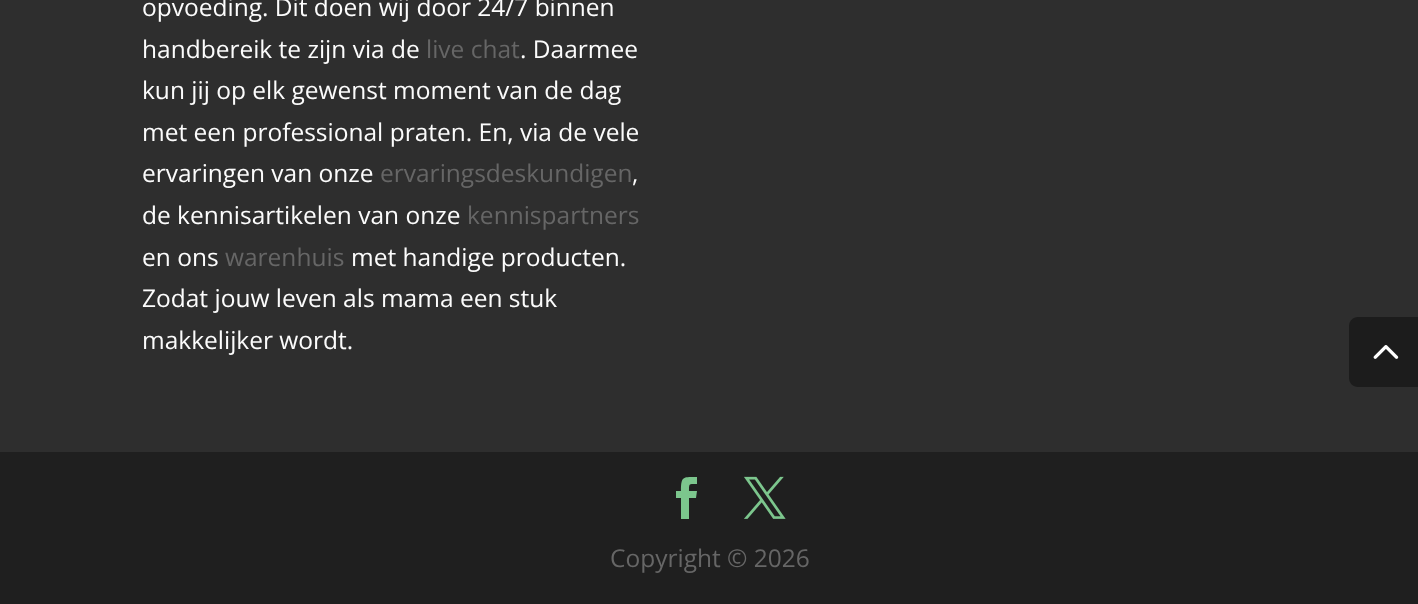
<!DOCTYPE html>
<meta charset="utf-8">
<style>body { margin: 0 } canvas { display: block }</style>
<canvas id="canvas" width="1418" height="604"></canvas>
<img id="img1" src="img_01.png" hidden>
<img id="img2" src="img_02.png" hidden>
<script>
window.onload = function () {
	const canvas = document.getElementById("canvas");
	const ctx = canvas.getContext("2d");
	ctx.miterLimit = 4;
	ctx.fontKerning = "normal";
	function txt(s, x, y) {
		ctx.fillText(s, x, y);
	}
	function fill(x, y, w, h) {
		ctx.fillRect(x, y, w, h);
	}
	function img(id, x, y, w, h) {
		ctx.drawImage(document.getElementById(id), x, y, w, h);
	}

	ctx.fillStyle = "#2E2E2E";
	fill(0, 0, 1418, 604);
	ctx.fillStyle = "#1F1F1F";
	fill(0, 452, 1418, 152);
	ctx.fillStyle = "#7CC68D";
	ctx.beginPath();
	ctx.moveTo(681, 519);
	ctx.lineTo(689, 519);
	ctx.lineTo(689, 498);
	ctx.lineTo(696, 498);
	ctx.lineTo(697, 491);
	ctx.lineTo(689, 491);
	ctx.bezierCurveTo(689, 483, 689, 484, 697, 484);
	ctx.lineTo(697, 477);
	ctx.bezierCurveTo(683, 477, 681, 476, 681, 491);
	ctx.lineTo(676, 491);
	ctx.lineTo(676, 498);
	ctx.lineTo(681, 498);
	ctx.closePath();
	ctx.fill();
	img("img1", 744, 476, 42, 43);
	ctx.fillStyle = "#1C1C1C";
	ctx.beginPath();
	ctx.moveTo(1358, 317);
	ctx.lineTo(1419, 317);
	ctx.lineTo(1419, 387);
	ctx.lineTo(1358, 387);
	ctx.bezierCurveTo(1353, 387, 1349, 383, 1349, 378);
	ctx.lineTo(1349, 326);
	ctx.bezierCurveTo(1349, 321, 1353, 317, 1358, 317);
	ctx.closePath();
	ctx.fill();
	img("img2", 1373, 345, 26, 14);
	ctx.font = "24.5px Open Sans";
	ctx.fillStyle = "#FCFCFC";
	txt("opvoeding. Dit doen wij door 24/7 binnen", 142, 16);
	txt("handbereik te zijn via de", 142, 58);
	ctx.fillStyle = "#666666";
	txt("live chat", 426, 58);
	ctx.fillStyle = "#FCFCFC";
	txt(". Daarmee", 520, 58);
	txt("kun jij op elk gewenst moment van de dag", 142, 99);
	txt("met een professional praten. En, via de vele", 142, 141);
	txt("ervaringen van onze", 142, 182);
	ctx.fillStyle = "#666666";
	txt("ervaringsdeskundigen", 380, 182);
	ctx.fillStyle = "#FCFCFC";
	txt(",", 632, 182);
	txt("de kennisartikelen van onze", 142, 224);
	ctx.fillStyle = "#666666";
	txt("kennispartners", 467, 224);
	ctx.fillStyle = "#FCFCFC";
	txt("en ons", 142, 266);
	ctx.fillStyle = "#666666";
	txt("warenhuis", 225, 266);
	ctx.fillStyle = "#FCFCFC";
	txt("met handige producten.", 351, 266);
	txt("Zodat jouw leven als mama een stuk", 142, 307);
	txt("makkelijker wordt.", 142, 349);
	ctx.fillStyle = "#666666";
	txt("Copyright © 2026", 610, 567);
};
</script>
